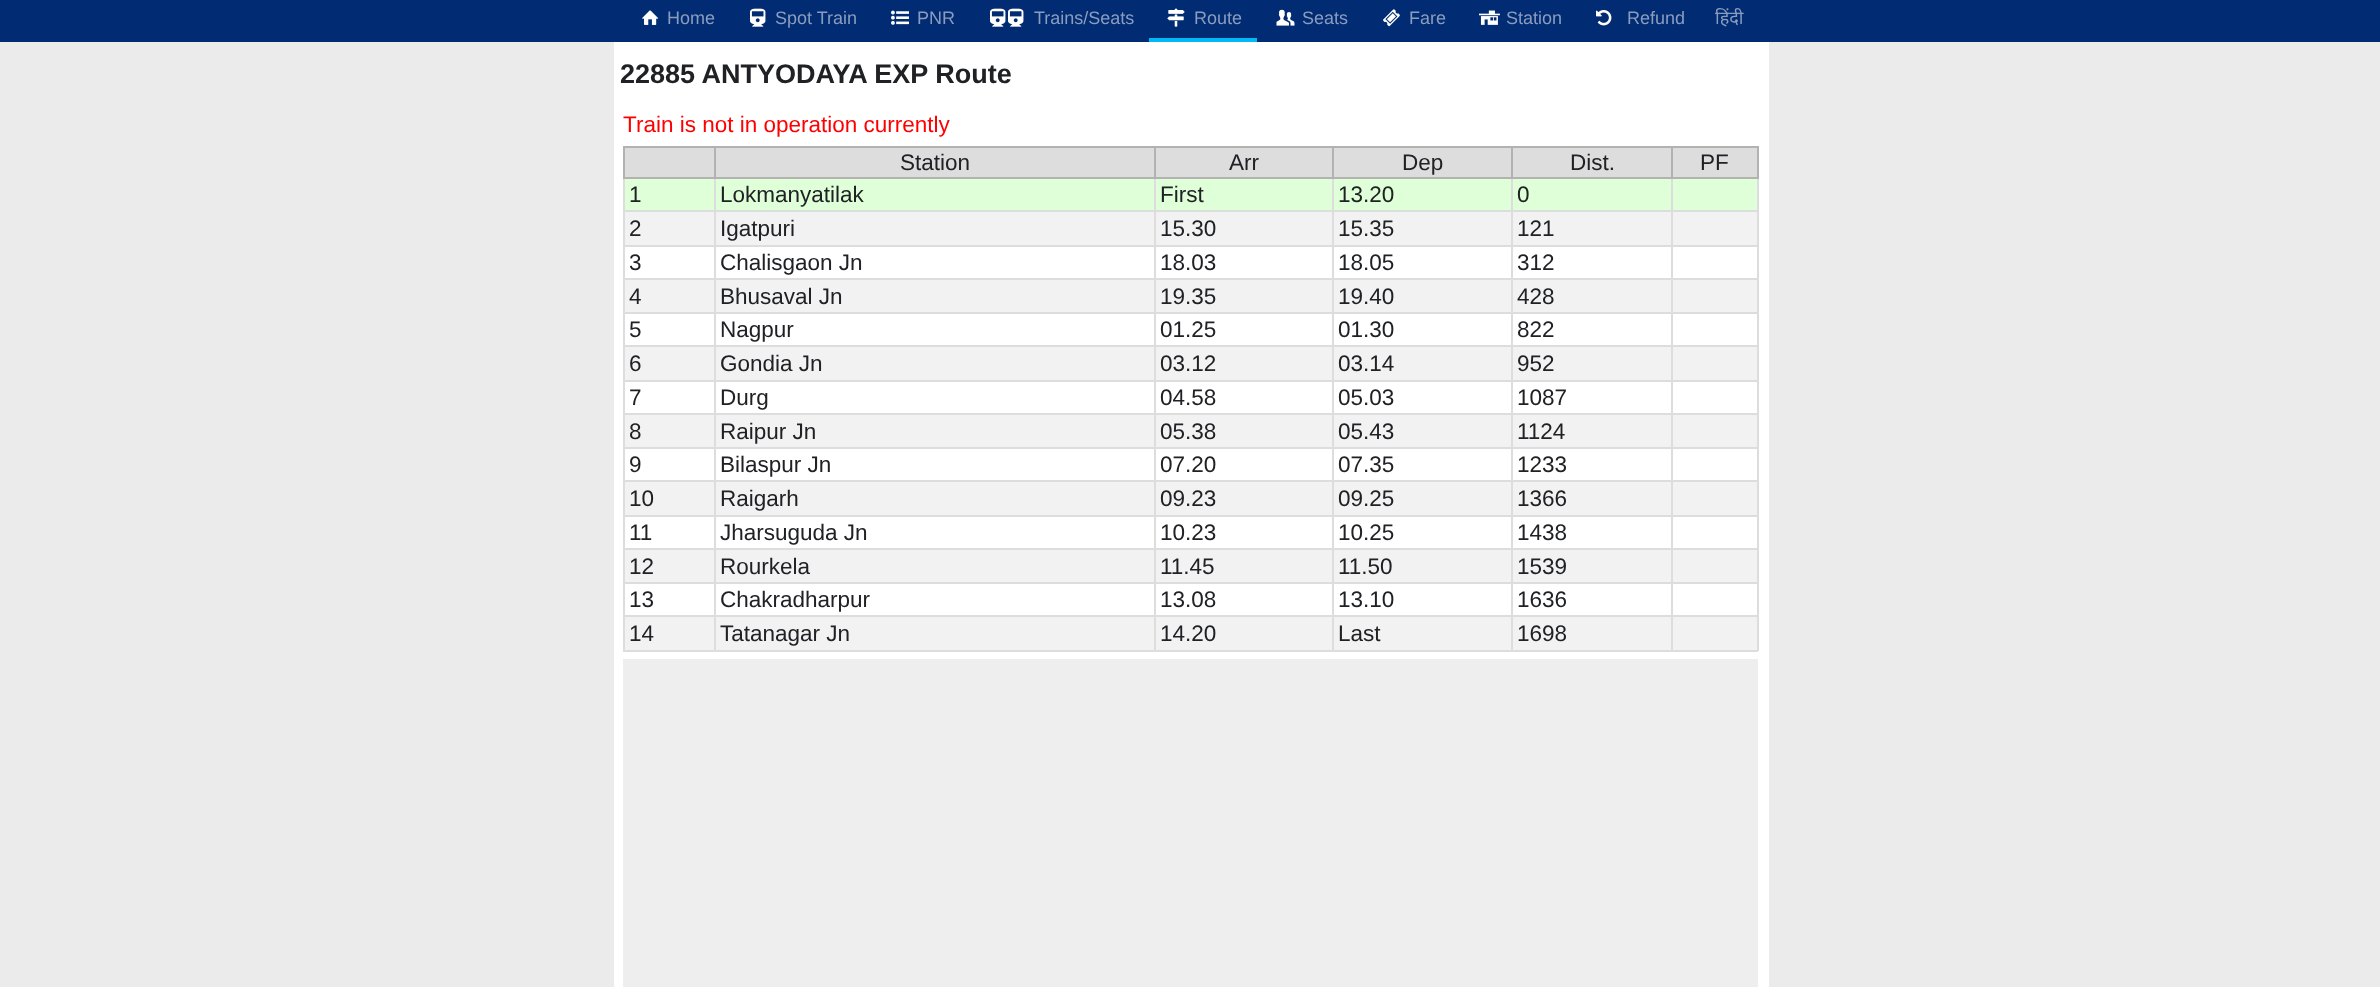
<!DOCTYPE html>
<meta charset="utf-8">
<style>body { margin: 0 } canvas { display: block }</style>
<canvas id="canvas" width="2380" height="987"></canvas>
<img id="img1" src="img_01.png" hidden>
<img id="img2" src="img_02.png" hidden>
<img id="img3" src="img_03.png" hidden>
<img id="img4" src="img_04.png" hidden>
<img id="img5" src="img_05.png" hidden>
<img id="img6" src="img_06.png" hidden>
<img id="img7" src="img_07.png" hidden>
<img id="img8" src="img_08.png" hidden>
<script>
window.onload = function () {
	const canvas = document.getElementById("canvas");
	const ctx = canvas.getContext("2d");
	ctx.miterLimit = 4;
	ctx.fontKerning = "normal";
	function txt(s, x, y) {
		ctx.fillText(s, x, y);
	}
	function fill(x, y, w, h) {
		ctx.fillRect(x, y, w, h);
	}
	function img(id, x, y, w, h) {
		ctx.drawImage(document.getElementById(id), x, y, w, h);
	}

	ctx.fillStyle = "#EBEBEB";
	fill(0, 0, 2380, 987);
	ctx.fillStyle = "#012B72";
	fill(0, 0, 2380, 42);
	img("img1", 642, 10, 17, 15);
	img("img2", 750, 8, 16, 19);
	img("img3", 891, 10, 18, 15);
	img("img2", 990, 8, 16, 19);
	img("img2", 1008, 8, 16, 19);
	ctx.fillStyle = "#00B9F5";
	fill(1149, 38, 108, 4);
	img("img4", 1167, 8, 18, 19);
	img("img5", 1276, 9, 19, 17);
	img("img6", 1383, 9, 17, 18);
	img("img7", 1479, 10, 21, 15);
	img("img8", 1596, 10, 16, 16);
	ctx.fillStyle = "#FFFFFF";
	fill(614, 42, 1155, 945);
	ctx.fillStyle = "#DDDDDD";
	fill(625, 148, 89, 29);
	ctx.fillStyle = "#B4B1B1";
	fill(1671, 146, 87, 2);
	ctx.fillStyle = "#DDDDDD";
	fill(1671, 210, 87, 2);
	fill(1671, 245, 87, 2);
	fill(1671, 278, 87, 2);
	fill(1671, 312, 87, 2);
	fill(1671, 345, 87, 2);
	fill(1671, 380, 87, 2);
	fill(1671, 413, 87, 2);
	fill(1671, 447, 87, 2);
	fill(1671, 480, 87, 2);
	fill(1671, 515, 87, 2);
	fill(1671, 548, 87, 2);
	fill(1671, 582, 87, 2);
	fill(1671, 615, 87, 2);
	fill(1757, 615, 2, 36);
	fill(1757, 582, 2, 35);
	fill(1757, 548, 2, 36);
	fill(1757, 515, 2, 34);
	fill(1757, 480, 2, 36);
	fill(1757, 447, 2, 35);
	fill(1757, 413, 2, 36);
	fill(1757, 380, 2, 34);
	fill(1757, 345, 2, 36);
	fill(1757, 312, 2, 35);
	fill(1757, 278, 2, 36);
	fill(1757, 245, 2, 34);
	fill(1757, 177, 2, 69);
	ctx.fillStyle = "#B4B1B1";
	fill(1757, 146, 2, 33);
	ctx.fillStyle = "#DFFFD8";
	fill(625, 179, 1132, 31);
	ctx.fillStyle = "#F2F2F2";
	fill(625, 212, 1132, 33);
	fill(625, 280, 1132, 32);
	fill(625, 347, 1132, 33);
	fill(625, 415, 1132, 32);
	fill(625, 482, 1132, 33);
	fill(625, 550, 1132, 32);
	fill(625, 617, 1132, 33);
	ctx.fillStyle = "#DDDDDD";
	fill(1671, 650, 87, 2);
	fill(1671, 615, 2, 36);
	fill(1511, 615, 162, 2);
	fill(1671, 582, 2, 35);
	fill(1511, 582, 162, 2);
	fill(1671, 548, 2, 36);
	fill(1511, 548, 162, 2);
	fill(1671, 515, 2, 34);
	fill(1511, 515, 162, 2);
	fill(1671, 480, 2, 36);
	fill(1511, 480, 162, 2);
	fill(1671, 447, 2, 35);
	fill(1511, 447, 162, 2);
	fill(1671, 413, 2, 36);
	fill(1511, 413, 162, 2);
	fill(1671, 380, 2, 34);
	fill(1511, 380, 162, 2);
	fill(1671, 345, 2, 36);
	fill(1511, 345, 162, 2);
	fill(1671, 312, 2, 35);
	fill(1511, 312, 162, 2);
	fill(1671, 278, 2, 36);
	fill(1511, 278, 162, 2);
	fill(1671, 245, 2, 34);
	fill(1511, 245, 162, 2);
	fill(1671, 210, 2, 36);
	fill(1511, 210, 162, 2);
	fill(1671, 177, 2, 35);
	ctx.fillStyle = "#B4B1B1";
	fill(1671, 177, 87, 2);
	fill(1671, 146, 2, 33);
	fill(1511, 146, 162, 2);
	ctx.fillStyle = "#DDDDDD";
	fill(1511, 650, 162, 2);
	fill(1511, 615, 2, 36);
	fill(1332, 615, 180, 2);
	fill(1511, 582, 2, 35);
	fill(1332, 582, 180, 2);
	fill(1511, 548, 2, 36);
	fill(1332, 548, 180, 2);
	fill(1511, 515, 2, 34);
	fill(1332, 515, 180, 2);
	fill(1511, 480, 2, 36);
	fill(1332, 480, 180, 2);
	fill(1511, 447, 2, 35);
	fill(1332, 447, 180, 2);
	fill(1511, 413, 2, 36);
	fill(1332, 413, 180, 2);
	fill(1511, 380, 2, 34);
	fill(1332, 380, 180, 2);
	fill(1511, 345, 2, 36);
	fill(1332, 345, 180, 2);
	fill(1511, 312, 2, 35);
	fill(1332, 312, 180, 2);
	fill(1511, 278, 2, 36);
	fill(1332, 278, 180, 2);
	fill(1511, 245, 2, 34);
	fill(1332, 245, 180, 2);
	fill(1511, 210, 2, 36);
	fill(1332, 210, 180, 2);
	fill(1511, 177, 2, 35);
	ctx.fillStyle = "#B4B1B1";
	fill(1511, 177, 162, 2);
	fill(1511, 146, 2, 33);
	fill(1332, 146, 180, 2);
	ctx.fillStyle = "#DDDDDD";
	fill(1332, 650, 180, 2);
	fill(1332, 615, 2, 36);
	fill(1154, 615, 180, 2);
	fill(1332, 582, 2, 35);
	fill(1154, 582, 180, 2);
	fill(1332, 548, 2, 36);
	fill(1154, 548, 180, 2);
	fill(1332, 515, 2, 34);
	fill(1154, 515, 180, 2);
	fill(1332, 480, 2, 36);
	fill(1154, 480, 180, 2);
	fill(1332, 447, 2, 35);
	fill(1154, 447, 180, 2);
	fill(1332, 413, 2, 36);
	fill(1154, 413, 180, 2);
	fill(1332, 380, 2, 34);
	fill(1154, 380, 180, 2);
	fill(1332, 345, 2, 36);
	fill(1154, 345, 180, 2);
	fill(1332, 312, 2, 35);
	fill(1154, 312, 180, 2);
	fill(1332, 278, 2, 36);
	fill(1154, 278, 180, 2);
	fill(1332, 245, 2, 34);
	fill(1154, 245, 180, 2);
	fill(1332, 210, 2, 36);
	fill(1154, 210, 180, 2);
	fill(1332, 177, 2, 35);
	ctx.fillStyle = "#B4B1B1";
	fill(1332, 177, 180, 2);
	fill(1332, 146, 2, 33);
	fill(1154, 146, 180, 2);
	ctx.fillStyle = "#DDDDDD";
	fill(1154, 650, 180, 2);
	fill(1154, 615, 2, 36);
	fill(714, 615, 441, 2);
	fill(1154, 582, 2, 35);
	fill(714, 582, 441, 2);
	fill(1154, 548, 2, 36);
	fill(714, 548, 441, 2);
	fill(1154, 515, 2, 34);
	fill(714, 515, 441, 2);
	fill(1154, 480, 2, 36);
	fill(714, 480, 441, 2);
	fill(1154, 447, 2, 35);
	fill(714, 447, 441, 2);
	fill(1154, 413, 2, 36);
	fill(714, 413, 441, 2);
	fill(1154, 380, 2, 34);
	fill(714, 380, 441, 2);
	fill(1154, 345, 2, 36);
	fill(714, 345, 441, 2);
	fill(1154, 312, 2, 35);
	fill(714, 312, 441, 2);
	fill(1154, 278, 2, 36);
	fill(714, 278, 441, 2);
	fill(1154, 245, 2, 34);
	fill(714, 245, 441, 2);
	fill(1154, 210, 2, 36);
	fill(714, 210, 441, 2);
	fill(1154, 177, 2, 35);
	ctx.fillStyle = "#B4B1B1";
	fill(1154, 177, 180, 2);
	fill(1154, 146, 2, 33);
	fill(714, 146, 441, 2);
	ctx.fillStyle = "#DDDDDD";
	fill(714, 650, 441, 2);
	fill(714, 615, 2, 36);
	fill(623, 615, 93, 2);
	fill(714, 582, 2, 35);
	fill(623, 582, 93, 2);
	fill(714, 548, 2, 36);
	fill(623, 548, 93, 2);
	fill(714, 515, 2, 34);
	fill(623, 515, 93, 2);
	fill(714, 480, 2, 36);
	fill(623, 480, 93, 2);
	fill(714, 447, 2, 35);
	fill(623, 447, 93, 2);
	fill(714, 413, 2, 36);
	fill(623, 413, 93, 2);
	fill(714, 380, 2, 34);
	fill(623, 380, 93, 2);
	fill(714, 345, 2, 36);
	fill(623, 345, 93, 2);
	fill(714, 312, 2, 35);
	fill(623, 312, 93, 2);
	fill(714, 278, 2, 36);
	fill(623, 278, 93, 2);
	fill(714, 245, 2, 34);
	fill(623, 245, 93, 2);
	fill(714, 210, 2, 36);
	fill(623, 210, 93, 2);
	fill(714, 177, 2, 35);
	ctx.fillStyle = "#B4B1B1";
	fill(714, 177, 441, 2);
	fill(714, 146, 2, 33);
	fill(623, 146, 93, 2);
	ctx.fillStyle = "#DDDDDD";
	fill(623, 650, 93, 2);
	fill(623, 615, 2, 36);
	fill(623, 582, 2, 35);
	fill(623, 548, 2, 36);
	fill(623, 515, 2, 34);
	fill(623, 480, 2, 36);
	fill(623, 447, 2, 35);
	fill(623, 413, 2, 36);
	fill(623, 380, 2, 34);
	fill(623, 345, 2, 36);
	fill(623, 312, 2, 35);
	fill(623, 278, 2, 36);
	fill(623, 245, 2, 34);
	fill(623, 177, 2, 69);
	ctx.fillStyle = "#B4B1B1";
	fill(623, 177, 93, 2);
	fill(623, 146, 2, 33);
	ctx.fillStyle = "#DDDDDD";
	fill(716, 148, 438, 29);
	fill(1156, 148, 176, 29);
	fill(1334, 148, 177, 29);
	fill(1513, 148, 158, 29);
	fill(1673, 148, 84, 29);
	ctx.fillStyle = "#EEEEEE";
	fill(623, 659, 1135, 328);
	ctx.font = "18px Liberation Sans";
	ctx.fillStyle = "#8A9DBE";
	txt("Home", 667, 24);
	txt("Spot Train", 775, 24);
	txt("PNR", 917, 24);
	txt("Trains/Seats", 1034, 24);
	txt("Route", 1194, 24);
	txt("Seats", 1302, 24);
	txt("Fare", 1409, 24);
	txt("Station", 1506, 24);
	txt("Refund", 1627, 24);
	ctx.font = "18px Noto Sans";
	txt("हिंदी", 1715, 24);
	ctx.font = "bold 27px Liberation Sans";
	ctx.fillStyle = "#202124";
	txt("22885 ANTYODAYA EXP Route", 620, 83);
	ctx.font = "22.5px Liberation Sans";
	ctx.fillStyle = "#FF0000";
	txt("Train is not in operation currently", 623, 132);
	ctx.fillStyle = "#202124";
	txt("Station", 900, 170);
	txt("Arr", 1229, 170);
	txt("Dep", 1402, 170);
	txt("Dist.", 1570, 170);
	txt("PF", 1700, 170);
	txt("1", 629, 202);
	txt("Lokmanyatilak", 720, 202);
	txt("First", 1160, 202);
	txt("13.20", 1338, 202);
	txt("0", 1517, 202);
	txt("2", 629, 236);
	txt("Igatpuri", 720, 236);
	txt("15.30", 1160, 236);
	txt("15.35", 1338, 236);
	txt("121", 1517, 236);
	txt("3", 629, 270);
	txt("Chalisgaon Jn", 720, 270);
	txt("18.03", 1160, 270);
	txt("18.05", 1338, 270);
	txt("312", 1517, 270);
	txt("4", 629, 304);
	txt("Bhusaval Jn", 720, 304);
	txt("19.35", 1160, 304);
	txt("19.40", 1338, 304);
	txt("428", 1517, 304);
	txt("5", 629, 337);
	txt("Nagpur", 720, 337);
	txt("01.25", 1160, 337);
	txt("01.30", 1338, 337);
	txt("822", 1517, 337);
	txt("6", 629, 371);
	txt("Gondia Jn", 720, 371);
	txt("03.12", 1160, 371);
	txt("03.14", 1338, 371);
	txt("952", 1517, 371);
	txt("7", 629, 405);
	txt("Durg", 720, 405);
	txt("04.58", 1160, 405);
	txt("05.03", 1338, 405);
	txt("1087", 1517, 405);
	txt("8", 629, 439);
	txt("Raipur Jn", 720, 439);
	txt("05.38", 1160, 439);
	txt("05.43", 1338, 439);
	txt("1124", 1517, 439);
	txt("9", 629, 472);
	txt("Bilaspur Jn", 720, 472);
	txt("07.20", 1160, 472);
	txt("07.35", 1338, 472);
	txt("1233", 1517, 472);
	txt("10", 629, 506);
	txt("Raigarh", 720, 506);
	txt("09.23", 1160, 506);
	txt("09.25", 1338, 506);
	txt("1366", 1517, 506);
	txt("11", 629, 540);
	txt("Jharsuguda Jn", 720, 540);
	txt("10.23", 1160, 540);
	txt("10.25", 1338, 540);
	txt("1438", 1517, 540);
	txt("12", 629, 574);
	txt("Rourkela", 720, 574);
	txt("11.45", 1160, 574);
	txt("11.50", 1338, 574);
	txt("1539", 1517, 574);
	txt("13", 629, 607);
	txt("Chakradharpur", 720, 607);
	txt("13.08", 1160, 607);
	txt("13.10", 1338, 607);
	txt("1636", 1517, 607);
	txt("14", 629, 641);
	txt("Tatanagar Jn", 720, 641);
	txt("14.20", 1160, 641);
	txt("Last", 1338, 641);
	txt("1698", 1517, 641);
};
</script>
